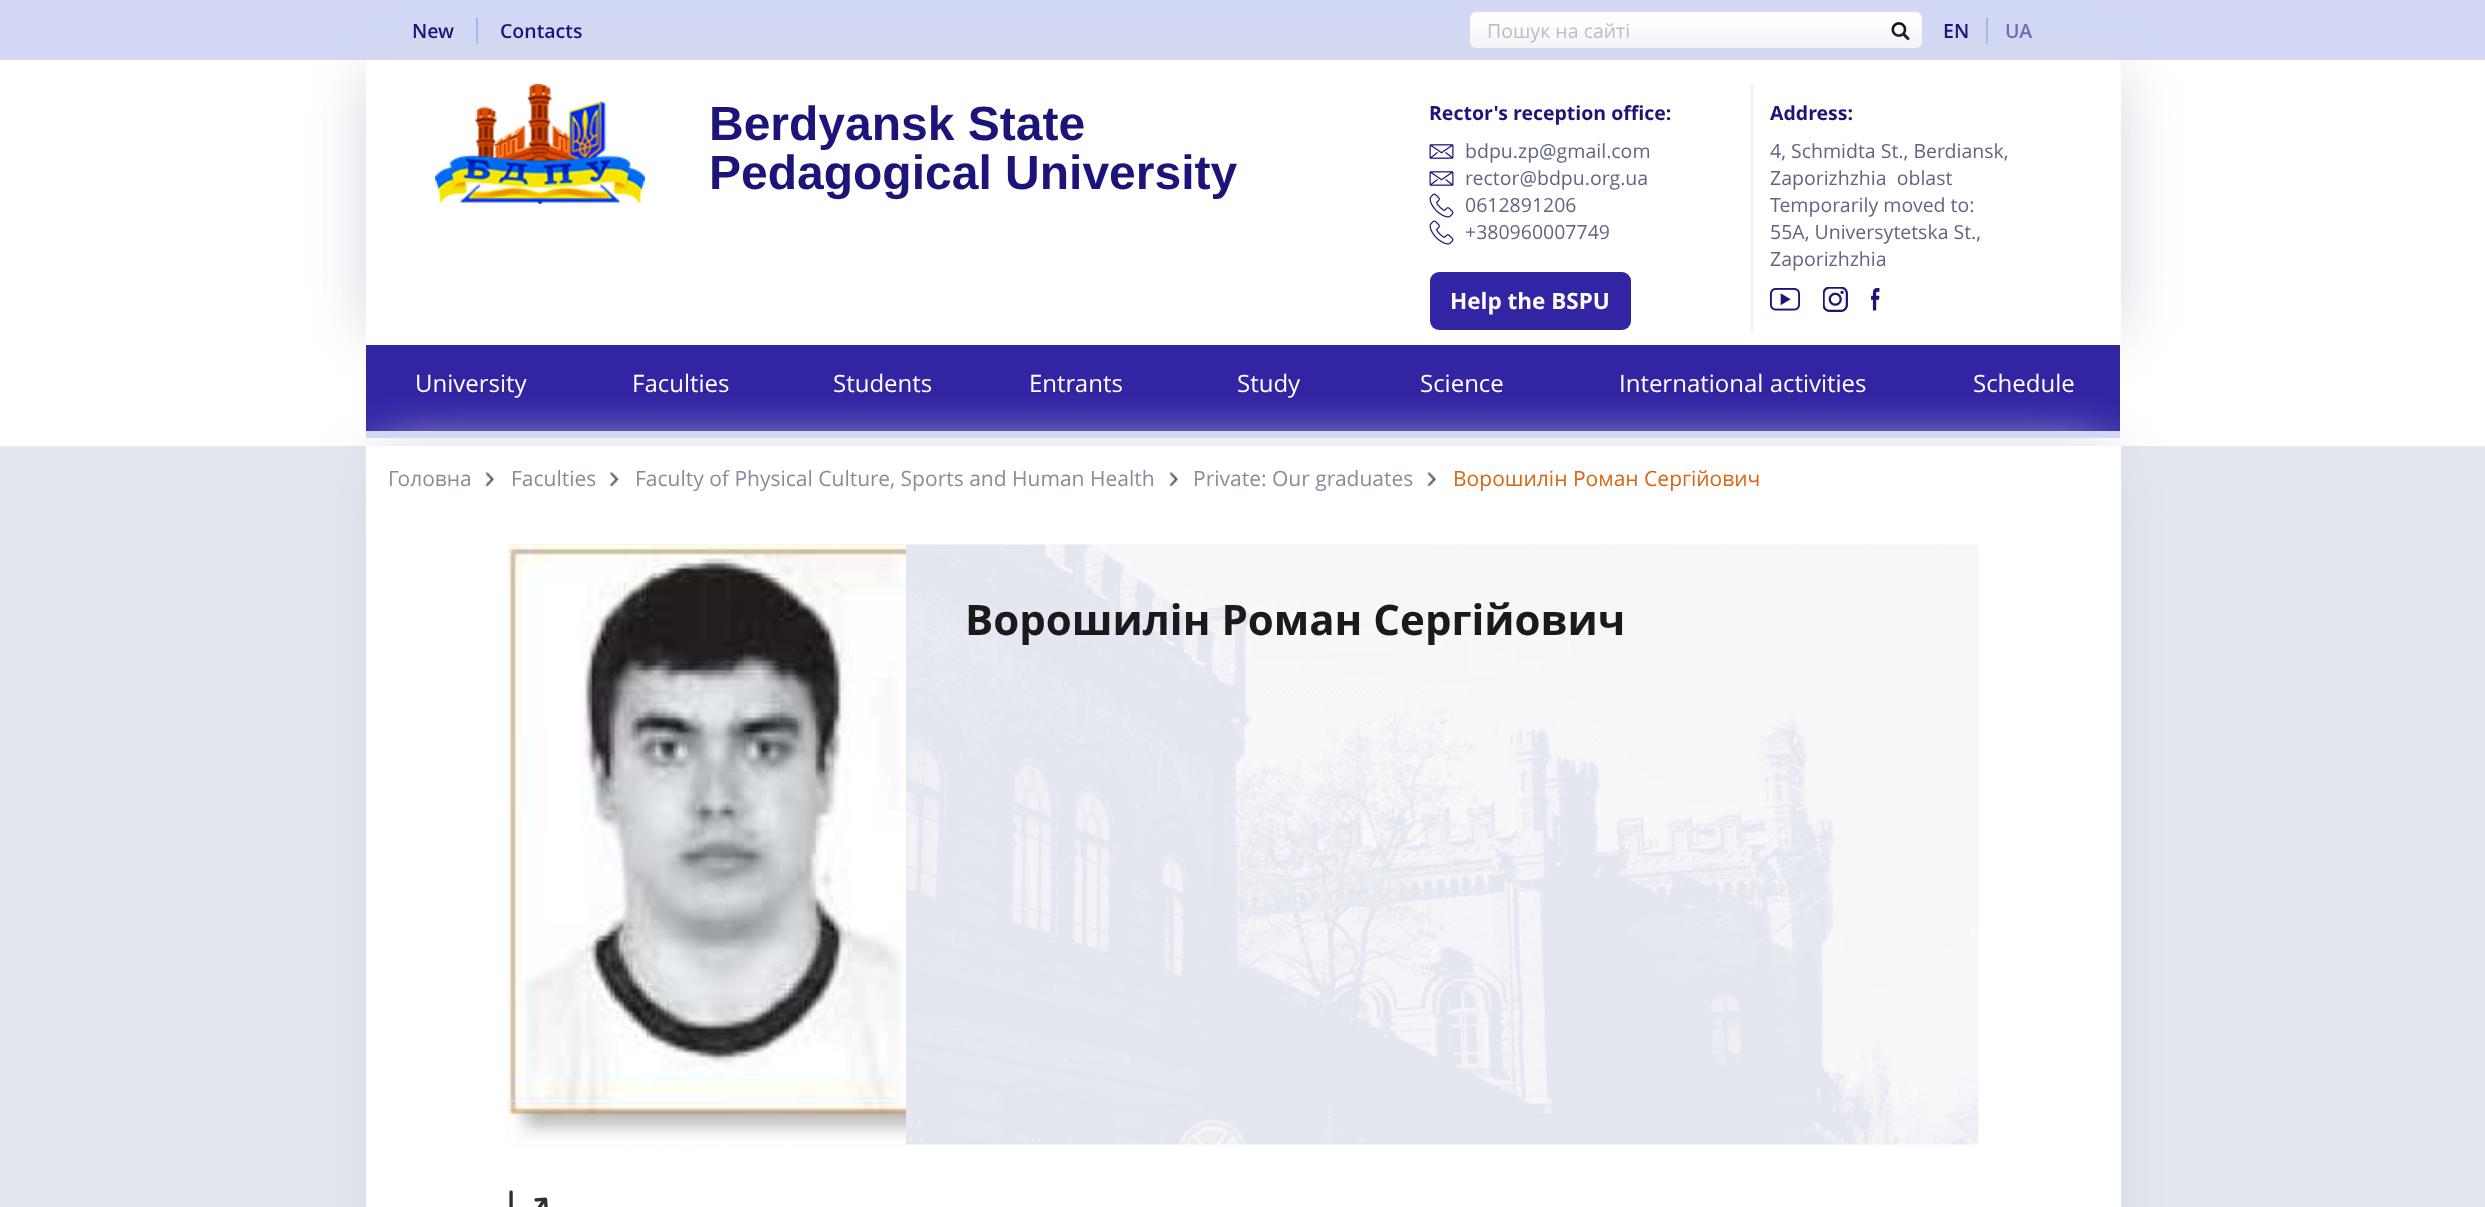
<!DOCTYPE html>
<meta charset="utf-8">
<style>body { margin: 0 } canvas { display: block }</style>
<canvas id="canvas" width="2485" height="1207"></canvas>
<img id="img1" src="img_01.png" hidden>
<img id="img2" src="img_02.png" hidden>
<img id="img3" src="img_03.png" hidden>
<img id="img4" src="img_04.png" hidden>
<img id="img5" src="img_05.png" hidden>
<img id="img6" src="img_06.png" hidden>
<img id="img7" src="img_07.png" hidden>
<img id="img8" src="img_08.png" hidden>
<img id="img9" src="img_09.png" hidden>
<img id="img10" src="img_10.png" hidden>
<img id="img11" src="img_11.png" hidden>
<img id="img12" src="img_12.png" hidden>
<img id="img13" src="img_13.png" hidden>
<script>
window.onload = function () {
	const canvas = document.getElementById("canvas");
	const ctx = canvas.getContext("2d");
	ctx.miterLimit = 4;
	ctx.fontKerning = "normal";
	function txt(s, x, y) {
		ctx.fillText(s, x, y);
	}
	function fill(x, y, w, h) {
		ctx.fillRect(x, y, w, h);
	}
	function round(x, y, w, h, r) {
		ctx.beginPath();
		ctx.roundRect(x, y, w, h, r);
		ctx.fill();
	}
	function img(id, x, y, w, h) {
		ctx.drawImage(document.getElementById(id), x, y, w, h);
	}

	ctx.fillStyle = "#FFFFFF";
	fill(0, 0, 2485, 1207);
	ctx.fillStyle = "#D2D8F6";
	fill(0, 0, 2485, 60);
	ctx.fillStyle = "#A7B1EA";
	fill(476, 18, 2, 26);
	ctx.fillStyle = "#FFFFFF";
	round(1470, 12, 452, 36, 6);
	img("img1", 1891, 22, 19, 19);
	ctx.fillStyle = "#A7B1EA";
	fill(1986, 18, 2, 26);
	ctx.save();
	ctx.beginPath();
	ctx.moveTo(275, 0);
	ctx.lineTo(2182, 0);
	ctx.lineTo(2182, 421);
	ctx.lineTo(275, 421);
	ctx.closePath();
	ctx.moveTo(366, 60);
	ctx.lineTo(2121, 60);
	ctx.lineTo(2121, 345);
	ctx.lineTo(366, 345);
	ctx.closePath();
	ctx.clip("evenodd");
	ctx.fillStyle = "#D9DCE4";
	ctx.filter = "blur(30px)";
	ctx.beginPath();
	ctx.rect(366, 75, 1725, 255);
	ctx.fill();
	ctx.filter = "none";
	ctx.restore();
	ctx.save();
	ctx.beginPath();
	ctx.moveTo(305, 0);
	ctx.lineTo(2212, 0);
	ctx.lineTo(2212, 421);
	ctx.lineTo(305, 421);
	ctx.closePath();
	ctx.moveTo(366, 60);
	ctx.lineTo(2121, 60);
	ctx.lineTo(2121, 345);
	ctx.lineTo(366, 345);
	ctx.closePath();
	ctx.clip("evenodd");
	ctx.fillStyle = "#D9DCE4";
	ctx.filter = "blur(30px)";
	ctx.beginPath();
	ctx.rect(396, 75, 1725, 255);
	ctx.fill();
	ctx.filter = "none";
	ctx.restore();
	img("img2", 435, 84, 210, 120);
	img("img3", 1429, 144, 25, 15);
	img("img3", 1429, 171, 25, 15);
	img("img4", 1429, 193, 25, 25);
	img("img4", 1429, 220, 25, 25);
	ctx.fillStyle = "#3125A4";
	round(1430, 272, 201, 58, 9);
	ctx.fillStyle = "#ECF0FD";
	fill(1751, 84, 2, 249);
	img("img5", 1770, 288, 30, 23);
	img("img6", 1823, 287, 25, 25);
	img("img7", 1871, 288, 9, 23);
	ctx.fillStyle = "#FFFFFF";
	fill(366, 345, 1755, 40);
	ctx.fillStyle = "#3125A4";
	fill(366, 345, 1754, 86);
	ctx.fillStyle = "#D2D8F6";
	fill(366, 431, 1754, 7);
	ctx.fillStyle = "#E4E7EF";
	fill(0, 446, 2485, 761);
	ctx.fillStyle = "#D9DCE4";
	ctx.filter = "blur(30px)";
	ctx.beginPath();
	ctx.rect(366, 461, 1725, 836);
	ctx.fill();
	ctx.filter = "none";
	ctx.filter = "blur(30px)";
	ctx.beginPath();
	ctx.rect(396, 461, 1725, 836);
	ctx.fill();
	ctx.filter = "none";
	ctx.fillStyle = "#FFFFFF";
	fill(366, 446, 1755, 761);
	img("img8", 485, 472, 9, 14);
	img("img9", 610, 472, 9, 14);
	img("img10", 1169, 472, 9, 14);
	img("img10", 1427, 472, 9, 14);
	img("img11", 508, 544, 1471, 601);
	img("img12", 508, 544, 398, 601);
	img("img13", 509, 1190, 39, 17);
	ctx.font = "600 19.5px Open Sans";
	ctx.fillStyle = "#1D1479";
	txt("New", 412, 38);
	txt("Contacts", 500, 38);
	ctx.font = "19.5px Open Sans";
	ctx.fillStyle = "#BDBDBD";
	txt("Пошук на сайті", 1487, 38);
	ctx.font = "600 19.5px Open Sans";
	ctx.fillStyle = "#1D1479";
	txt("EN", 1943, 38);
	ctx.fillStyle = "#736CB2";
	txt("UA", 2005, 38);
	ctx.font = "bold 48px Liberation Sans";
	ctx.fillStyle = "#1D1479";
	txt("Berdyansk State", 709, 140);
	txt("Pedagogical University", 709, 189);
	ctx.font = "bold 19.5px Open Sans";
	txt("Rector's reception office:", 1429, 120);
	ctx.font = "19.5px Open Sans";
	ctx.fillStyle = "#606681";
	txt("bdpu.zp@gmail.com", 1465, 158);
	txt("rector@bdpu.org.ua", 1465, 185);
	txt("0612891206", 1465, 212);
	txt("+380960007749", 1465, 239);
	ctx.font = "bold 22.5px Open Sans";
	ctx.fillStyle = "#FFFFFF";
	txt("Help the BSPU", 1450, 309);
	ctx.font = "bold 19.5px Open Sans";
	ctx.fillStyle = "#1D1479";
	txt("Address:", 1770, 120);
	ctx.font = "19.5px Open Sans";
	ctx.fillStyle = "#606681";
	txt("4, Schmidta St., Berdiansk,", 1770, 158);
	txt("Zaporizhzhia  oblast", 1770, 185);
	txt("Temporarily moved to:", 1770, 212);
	txt("55А, Universytetska St.,", 1770, 239);
	txt("Zaporizhzhia", 1770, 266);
	ctx.font = "24px Open Sans";
	ctx.fillStyle = "#FFFFFF";
	txt("University", 415, 392);
	txt("Faculties", 632, 392);
	txt("Students", 833, 392);
	txt("Entrants", 1029, 392);
	txt("Study", 1237, 392);
	txt("Science", 1420, 392);
	txt("International activities", 1619, 392);
	txt("Schedule", 1973, 392);
	ctx.font = "21px Open Sans";
	ctx.fillStyle = "#888C9D";
	txt("Головна", 388, 486);
	txt("Faculties", 511, 486);
	txt("Faculty of Physical Culture, Sports and Human Health", 635, 486);
	txt("Private: Our graduates", 1193, 486);
	ctx.fillStyle = "#D86613";
	txt("Ворошилін Роман Сергійович", 1453, 486);
	ctx.font = "bold 42px Open Sans";
	ctx.fillStyle = "#1A1A1A";
	txt("Ворошилін Роман Сергійович", 965, 635);
};
</script>
